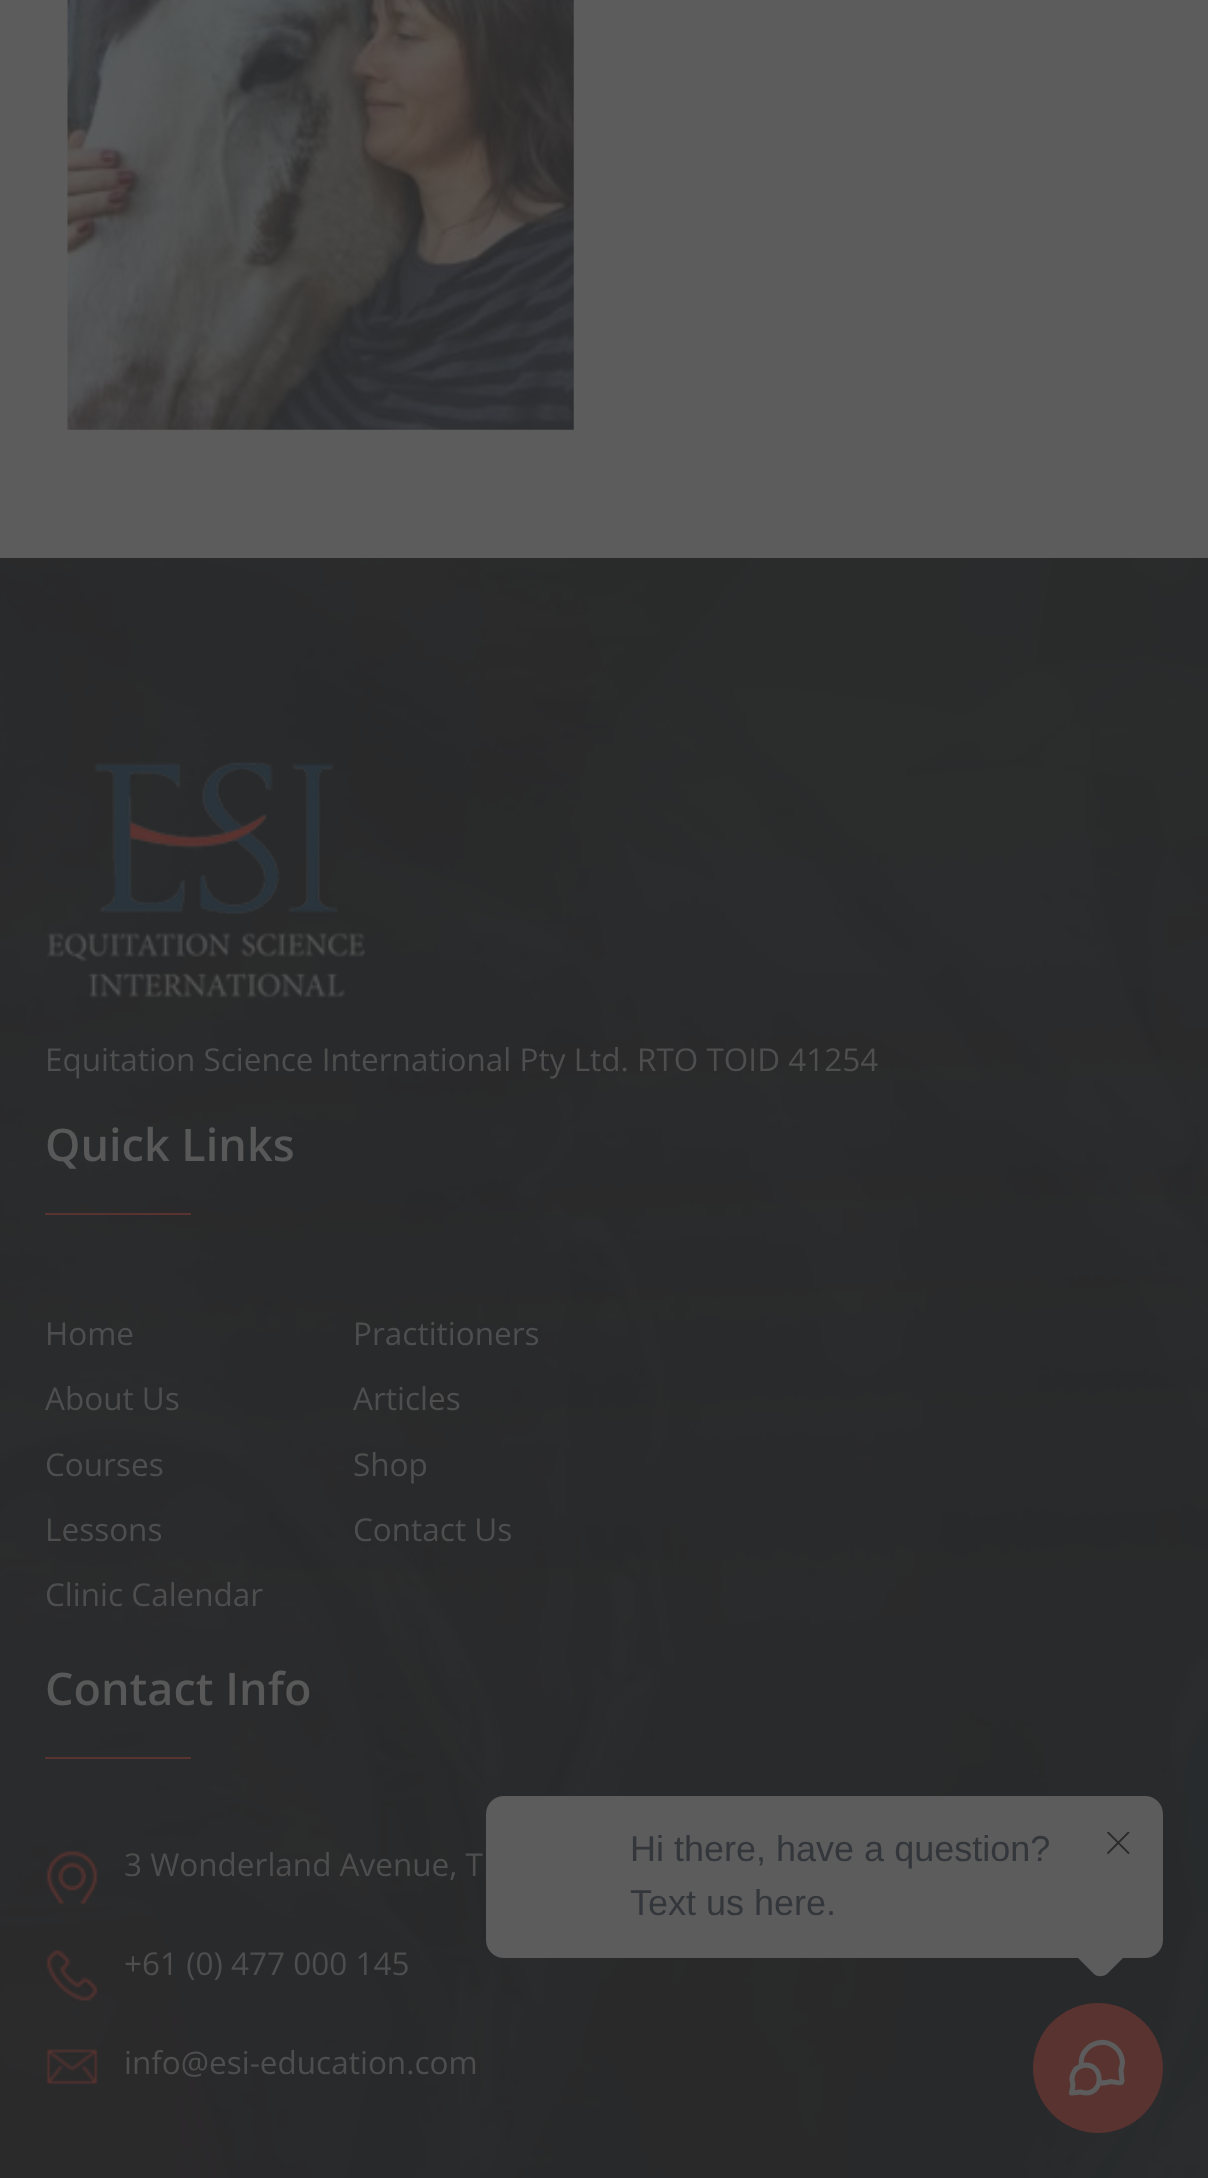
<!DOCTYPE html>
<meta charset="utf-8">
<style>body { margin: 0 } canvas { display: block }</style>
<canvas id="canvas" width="1208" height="2178"></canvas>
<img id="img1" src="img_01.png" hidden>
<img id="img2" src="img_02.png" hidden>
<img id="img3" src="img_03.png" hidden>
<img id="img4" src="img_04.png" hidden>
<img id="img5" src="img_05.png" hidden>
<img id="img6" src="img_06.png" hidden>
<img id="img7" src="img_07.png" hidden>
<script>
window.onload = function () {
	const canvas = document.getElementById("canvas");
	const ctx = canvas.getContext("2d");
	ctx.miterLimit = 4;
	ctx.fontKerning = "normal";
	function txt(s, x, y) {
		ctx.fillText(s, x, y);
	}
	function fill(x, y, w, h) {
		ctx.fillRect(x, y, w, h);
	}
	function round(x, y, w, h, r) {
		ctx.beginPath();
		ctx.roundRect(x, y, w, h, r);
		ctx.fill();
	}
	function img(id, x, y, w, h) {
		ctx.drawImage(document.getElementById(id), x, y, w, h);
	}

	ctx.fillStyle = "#5C5C5C";
	fill(0, 0, 1208, 2178);
	img("img1", 67, 0, 507, 430);
	ctx.fillStyle = "#292A2B";
	fill(0, 558, 1208, 1620);
	img("img2", 0, 558, 1208, 1620);
	img("img3", 46, 762, 320, 236);
	ctx.fillStyle = "#583330";
	fill(45, 1213, 146, 2);
	fill(45, 1757, 146, 2);
	img("img4", 46, 1851, 52, 53);
	img("img5", 46, 1950, 52, 51);
	img("img6", 46, 2049, 52, 36);
	ctx.fillStyle = "#5C5C5C";
	round(486, 1796, 677, 162, 18);
	ctx.beginPath();
	ctx.moveTo(1107, 1923);
	ctx.lineTo(1126, 1942);
	ctx.bezierCurveTo(1129, 1946, 1129, 1951, 1126, 1955);
	ctx.lineTo(1107, 1974);
	ctx.bezierCurveTo(1103, 1977, 1097, 1977, 1094, 1974);
	ctx.lineTo(1075, 1955);
	ctx.bezierCurveTo(1071, 1951, 1071, 1946, 1075, 1942);
	ctx.lineTo(1094, 1923);
	ctx.bezierCurveTo(1097, 1920, 1103, 1920, 1107, 1923);
	ctx.closePath();
	ctx.fill();
	img("img7", 1107, 1832, 23, 22);
	ctx.fillStyle = "#583330";
	ctx.beginPath();
	ctx.arc(1098, 2068, 65, 0, Math.PI * 2);
	ctx.fill();
	ctx.beginPath();
	ctx.moveTo(1081.5, 2066);
	ctx.bezierCurveTo(1078.5, 2046.5, 1102.5, 2034.5, 1116.5, 2048.5);
	ctx.bezierCurveTo(1120.5, 2052.5, 1122, 2057, 1122.5, 2062.5);
	ctx.bezierCurveTo(1122.5, 2065.5, 1121, 2068, 1121, 2071);
	ctx.lineTo(1122, 2080.5);
	ctx.lineTo(1121.5, 2082.5);
	ctx.bezierCurveTo(1120, 2083.5, 1112.5, 2081.5, 1111, 2081.5);
	ctx.lineTo(1106.5, 2082.5);
	ctx.bezierCurveTo(1104, 2083, 1101.5, 2083, 1099, 2083);
	ctx.moveTo(1085.5, 2093);
	ctx.bezierCurveTo(1105.5, 2093, 1102.5, 2061.5, 1083, 2065.5);
	ctx.bezierCurveTo(1078.5, 2066.5, 1074.5, 2069.5, 1073, 2074);
	ctx.bezierCurveTo(1072, 2076.5, 1071.5, 2079.5, 1072.5, 2082.5);
	ctx.lineTo(1073, 2085);
	ctx.lineTo(1071.5, 2093);
	ctx.lineTo(1080.5, 2092);
	ctx.closePath();
	ctx.strokeStyle = "#5C5C5C";
	ctx.lineWidth = 5.1;
	ctx.lineCap = "round";
	ctx.lineJoin = "round";
	ctx.stroke();
	ctx.font = "31.5px Open Sans";
	ctx.fillStyle = "#4E4E4E";
	txt("Equitation Science International Pty Ltd. RTO TOID 41254", 45, 1071);
	ctx.font = "600 45px Open Sans";
	ctx.fillStyle = "#585858";
	txt("Quick Links", 45, 1161);
	ctx.font = "31.5px Open Sans";
	ctx.fillStyle = "#4E4E4E";
	txt("Home", 45, 1345);
	txt("About Us", 45, 1410);
	txt("Courses", 45, 1476);
	txt("Lessons", 45, 1541);
	txt("Clinic Calendar", 45, 1606);
	txt("Practitioners", 353, 1345);
	txt("Articles", 353, 1410);
	txt("Shop", 353, 1476);
	txt("Contact Us", 353, 1541);
	ctx.font = "600 45px Open Sans";
	ctx.fillStyle = "#585858";
	txt("Contact Info", 45, 1705);
	ctx.font = "31.5px Open Sans";
	ctx.fillStyle = "#4E4E4E";
	txt("3 Wonderland Avenue, T", 124, 1876);
	txt("+61 (0) 477 000 145", 124, 1975);
	txt("info@esi-education.com", 124, 2074);
	ctx.font = "36px Liberation Sans";
	ctx.fillStyle = "#33363A";
	txt("Hi there, have a question?", 630, 1861);
	txt("Text us here.", 630, 1915);
};
</script>
